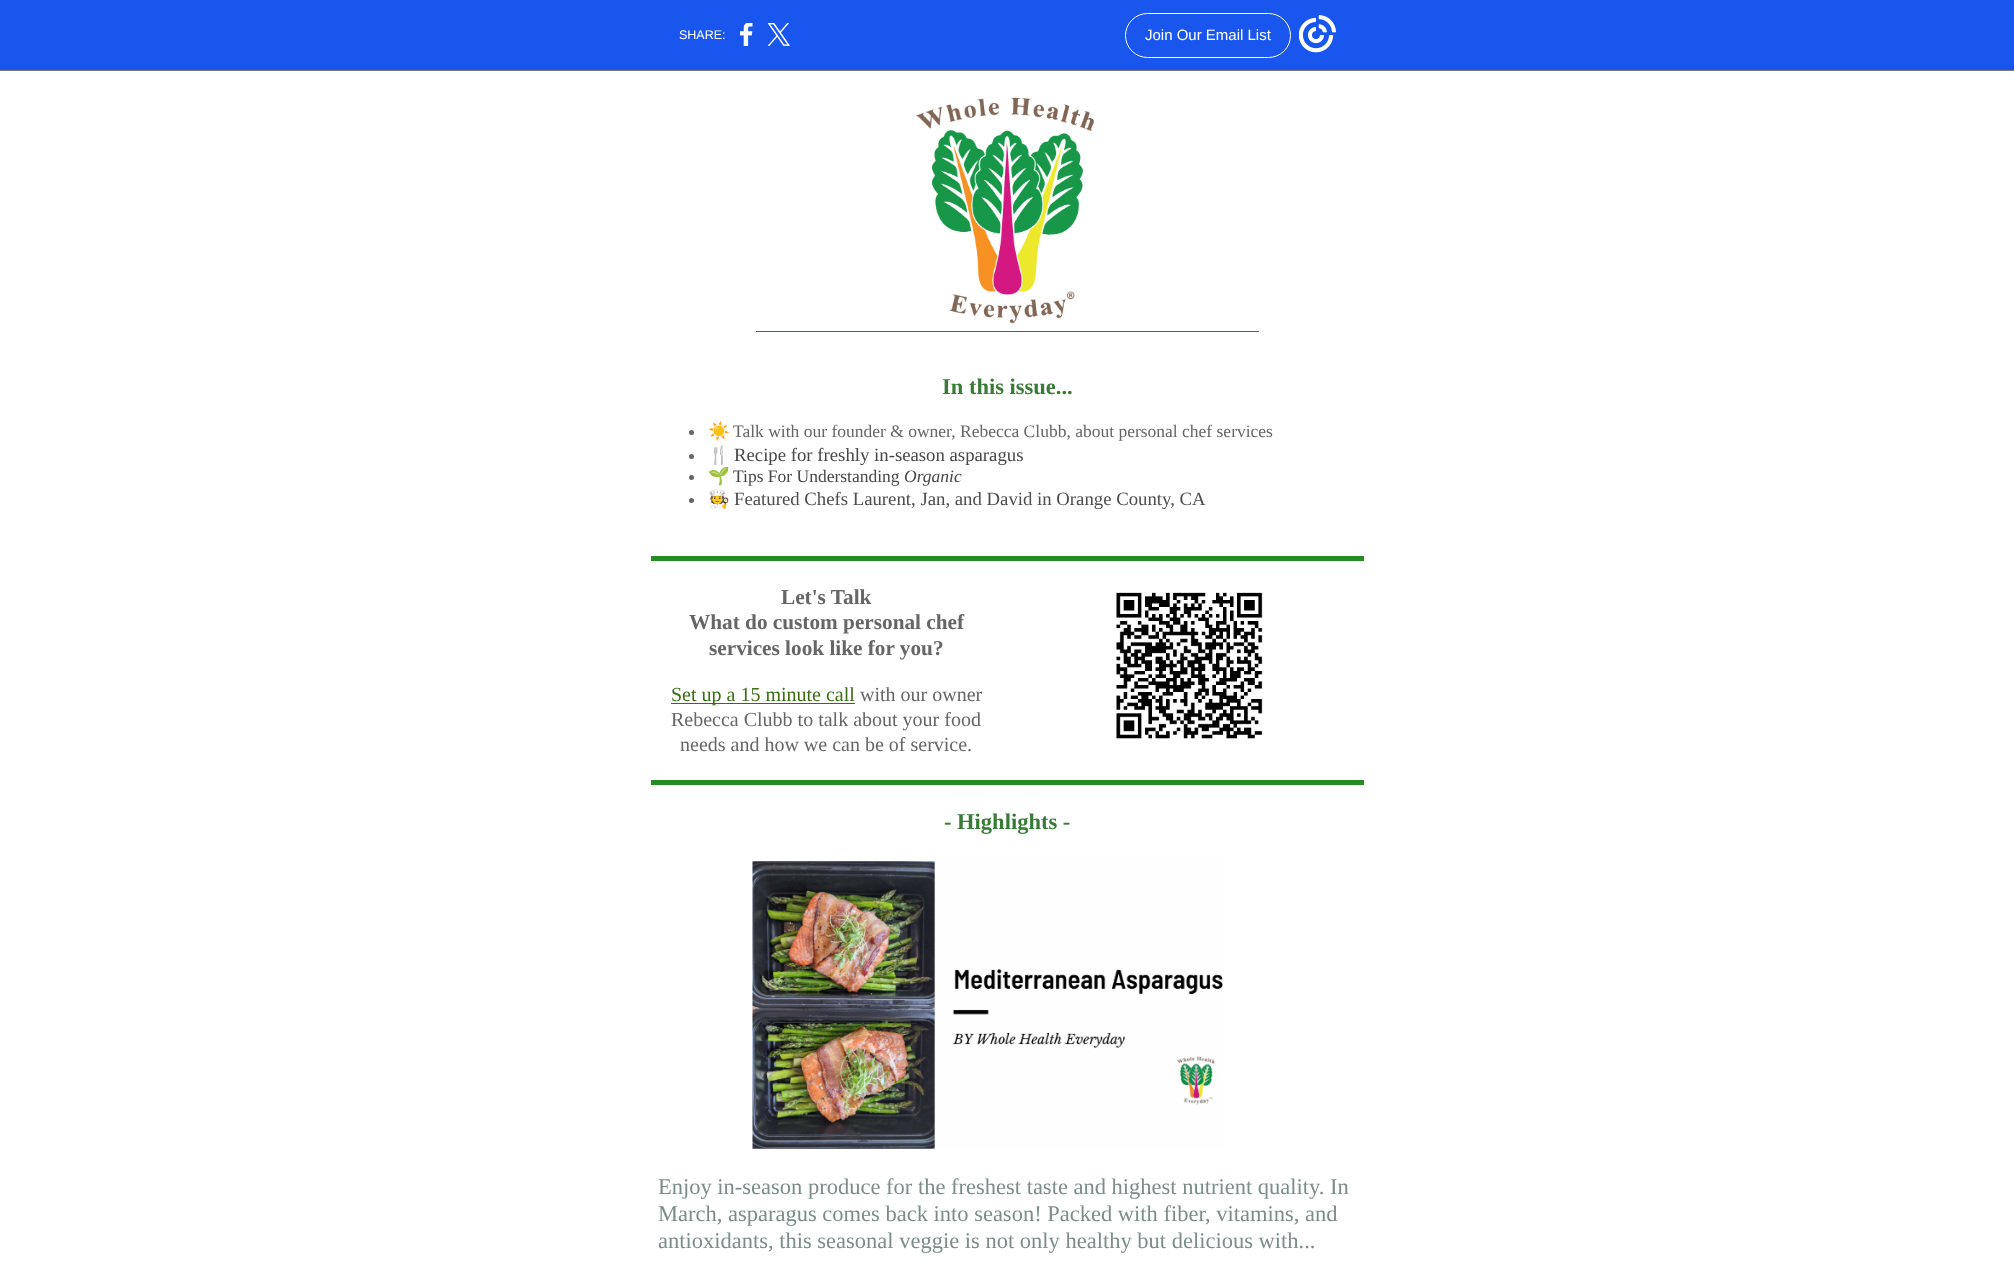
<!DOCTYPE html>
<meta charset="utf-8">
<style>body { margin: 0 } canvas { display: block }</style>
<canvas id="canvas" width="2014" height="1262"></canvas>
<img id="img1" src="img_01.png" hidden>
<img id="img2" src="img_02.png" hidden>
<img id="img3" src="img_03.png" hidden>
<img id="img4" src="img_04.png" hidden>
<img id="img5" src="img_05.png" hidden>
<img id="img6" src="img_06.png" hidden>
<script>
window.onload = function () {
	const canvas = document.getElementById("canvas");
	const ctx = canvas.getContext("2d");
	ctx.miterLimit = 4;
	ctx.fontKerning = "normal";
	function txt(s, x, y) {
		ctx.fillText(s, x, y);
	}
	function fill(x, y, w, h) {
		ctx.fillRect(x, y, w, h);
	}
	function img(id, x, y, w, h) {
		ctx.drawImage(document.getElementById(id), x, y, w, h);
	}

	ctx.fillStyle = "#FFFFFF";
	fill(0, 0, 2014, 1262);
	ctx.fillStyle = "#1856ED";
	fill(0, 0, 2014, 70);
	ctx.fillStyle = "#7A7A7A";
	fill(0, 70, 2014, 1);
	img("img1", 740, 23, 13, 23);
	img("img2", 768, 23, 22, 23);
	ctx.beginPath();
	ctx.roundRect(1125.5, 13.5, 165, 44, 22);
	ctx.strokeStyle = "#FFFFFF";
	ctx.stroke();
	img("img3", 1299, 15, 37, 38);
	img("img4", 916, 97, 179, 227);
	ctx.fillStyle = "#387B37";
	fill(756, 331, 503, 1);
	ctx.fillStyle = "#666666";
	ctx.beginPath();
	ctx.arc(691.5, 432.5, 2.5, 0, Math.PI * 2);
	ctx.fill();
	ctx.beginPath();
	ctx.arc(691.5, 456.5, 2.5, 0, Math.PI * 2);
	ctx.fill();
	ctx.beginPath();
	ctx.arc(691.5, 477.5, 2.5, 0, Math.PI * 2);
	ctx.fill();
	ctx.beginPath();
	ctx.arc(691.5, 500.5, 2.5, 0, Math.PI * 2);
	ctx.fill();
	ctx.fillStyle = "#258D23";
	fill(651, 556, 713, 5);
	ctx.fillStyle = "#3A6C14";
	fill(671, 703, 184, 1);
	img("img5", 1116, 592, 147, 147);
	ctx.fillStyle = "#258D23";
	fill(651, 780, 713, 5);
	img("img6", 752, 861, 471, 288);
	ctx.font = "12.5px Liberation Sans";
	ctx.fillStyle = "#FFFFFF";
	txt("SHARE:", 679, 39);
	ctx.font = "15px Liberation Sans";
	txt("Join Our Email List", 1145, 40);
	ctx.font = "bold 22.5px Liberation Serif";
	ctx.fillStyle = "#387B37";
	txt("In this issue...", 942, 394);
	ctx.font = "17.5px Noto Color Emoji";
	ctx.fillStyle = "#666666";
	txt("☀️", 708, 437);
	ctx.font = "17.5px Liberation Serif";
	txt("Talk with our founder & owner, Rebecca Clubb, about personal chef services", 733, 437);
	ctx.font = "17.5px Noto Color Emoji";
	txt("🍴", 708, 461);
	ctx.font = "18.75px Liberation Serif";
	ctx.fillStyle = "#474747";
	txt("Recipe for freshly in-season asparagus", 734, 461);
	ctx.font = "17.5px Noto Color Emoji";
	ctx.fillStyle = "#666666";
	txt("🌱", 708, 482);
	ctx.font = "17.5px Liberation Serif";
	ctx.fillStyle = "#474747";
	txt("Tips For Understanding", 733, 482);
	ctx.font = "italic 17.5px Liberation Serif";
	txt("Organic", 904, 482);
	ctx.font = "17.5px Noto Color Emoji";
	ctx.fillStyle = "#666666";
	txt("🧑‍🍳", 708, 505);
	ctx.font = "18.75px Liberation Serif";
	ctx.fillStyle = "#4D4D4D";
	txt("Featured Chefs Laurent, Jan, and David in Orange County, CA", 734, 505);
	ctx.font = "bold 21.25px Liberation Serif";
	ctx.fillStyle = "#666666";
	txt("Let's Talk", 781, 604);
	txt("What do custom personal chef", 689, 629);
	txt("services look like for you?", 709, 655);
	ctx.font = "20px Liberation Serif";
	ctx.fillStyle = "#3A6C14";
	txt("Set up a 15 minute call", 671, 701);
	ctx.fillStyle = "#666666";
	txt("with our owner", 860, 701);
	txt("Rebecca Clubb to talk about your food", 671, 726);
	txt("needs and how we can be of service.", 680, 751);
	ctx.font = "bold 22.5px Liberation Serif";
	ctx.fillStyle = "#387B37";
	txt("- Highlights -", 944, 829);
	ctx.font = "22.5px Liberation Serif";
	ctx.fillStyle = "#7B8C89";
	txt("Enjoy in-season produce for the freshest taste and highest nutrient quality. In", 658, 1194);
	txt("March, asparagus comes back into season! Packed with fiber, vitamins, and", 658, 1221);
	txt("antioxidants, this seasonal veggie is not only healthy but delicious with...", 658, 1248);
};
</script>
